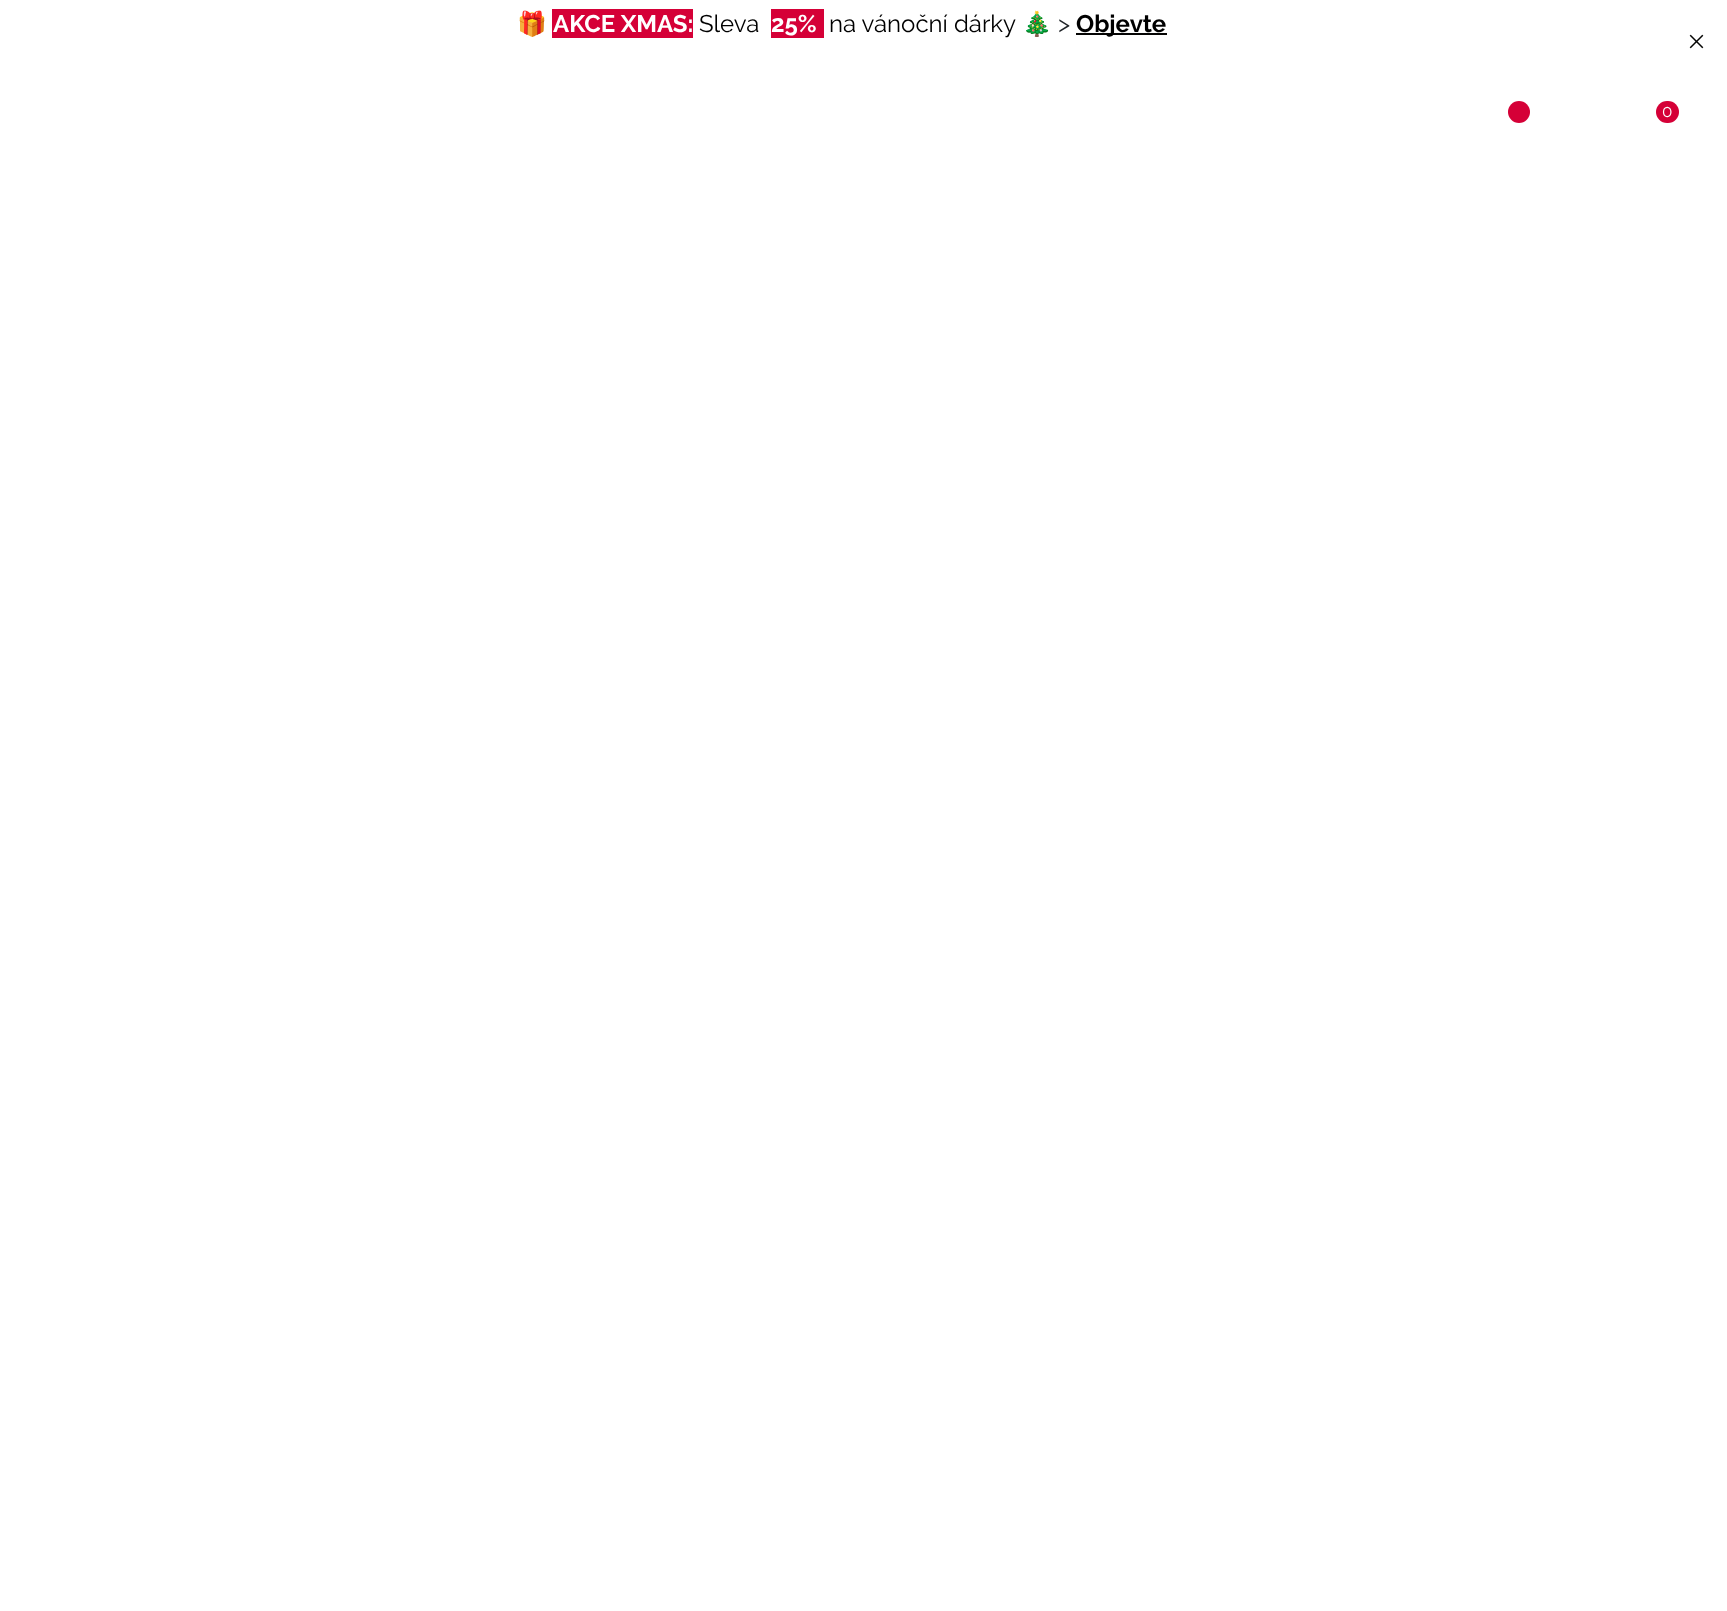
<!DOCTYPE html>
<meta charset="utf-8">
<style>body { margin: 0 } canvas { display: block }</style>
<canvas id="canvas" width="1727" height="1611"></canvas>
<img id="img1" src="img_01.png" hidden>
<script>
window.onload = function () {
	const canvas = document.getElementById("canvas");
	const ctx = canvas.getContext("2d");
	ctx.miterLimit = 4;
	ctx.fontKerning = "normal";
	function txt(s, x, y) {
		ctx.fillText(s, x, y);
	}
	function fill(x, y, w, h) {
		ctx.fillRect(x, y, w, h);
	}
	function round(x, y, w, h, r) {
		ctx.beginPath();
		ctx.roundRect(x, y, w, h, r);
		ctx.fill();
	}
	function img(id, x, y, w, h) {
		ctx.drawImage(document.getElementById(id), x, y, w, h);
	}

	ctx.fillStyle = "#FFFFFF";
	fill(0, 0, 1727, 1611);
	ctx.fillStyle = "#D50037";
	fill(552, 9, 141, 29);
	fill(771, 9, 53, 29);
	ctx.fillStyle = "#050504";
	fill(1076, 33, 91, 2);
	img("img1", 1689, 34, 15, 15);
	ctx.fillStyle = "#D50037";
	ctx.beginPath();
	ctx.arc(1519, 112, 11, 0, Math.PI * 2);
	ctx.fill();
	round(1656, 101, 23, 22, 11);
	ctx.font = "24px Noto Color Emoji";
	ctx.fillStyle = "#212529";
	txt("🎁", 517, 32);
	ctx.font = "bold 24px Raleway";
	ctx.fillStyle = "#FFFFFF";
	txt("AKCE XMAS:", 553, 32);
	ctx.font = "24px Raleway";
	ctx.fillStyle = "#000000";
	txt("Sleva", 699, 32);
	ctx.font = "bold 24px Raleway";
	ctx.fillStyle = "#FFFFFF";
	txt("25%", 771, 32);
	ctx.font = "24px Raleway";
	ctx.fillStyle = "#000000";
	txt("na vánoční dárky", 829, 32);
	ctx.font = "24px Noto Color Emoji";
	ctx.fillStyle = "#212529";
	txt("🎄", 1022, 32);
	ctx.font = "24px Raleway";
	txt(">", 1058, 32);
	ctx.font = "bold 24px Raleway";
	ctx.fillStyle = "#000000";
	txt("Objevte", 1076, 32);
	ctx.font = "17px Raleway";
	ctx.fillStyle = "#FFFFFF";
	txt("0", 1662, 117);
};
</script>
